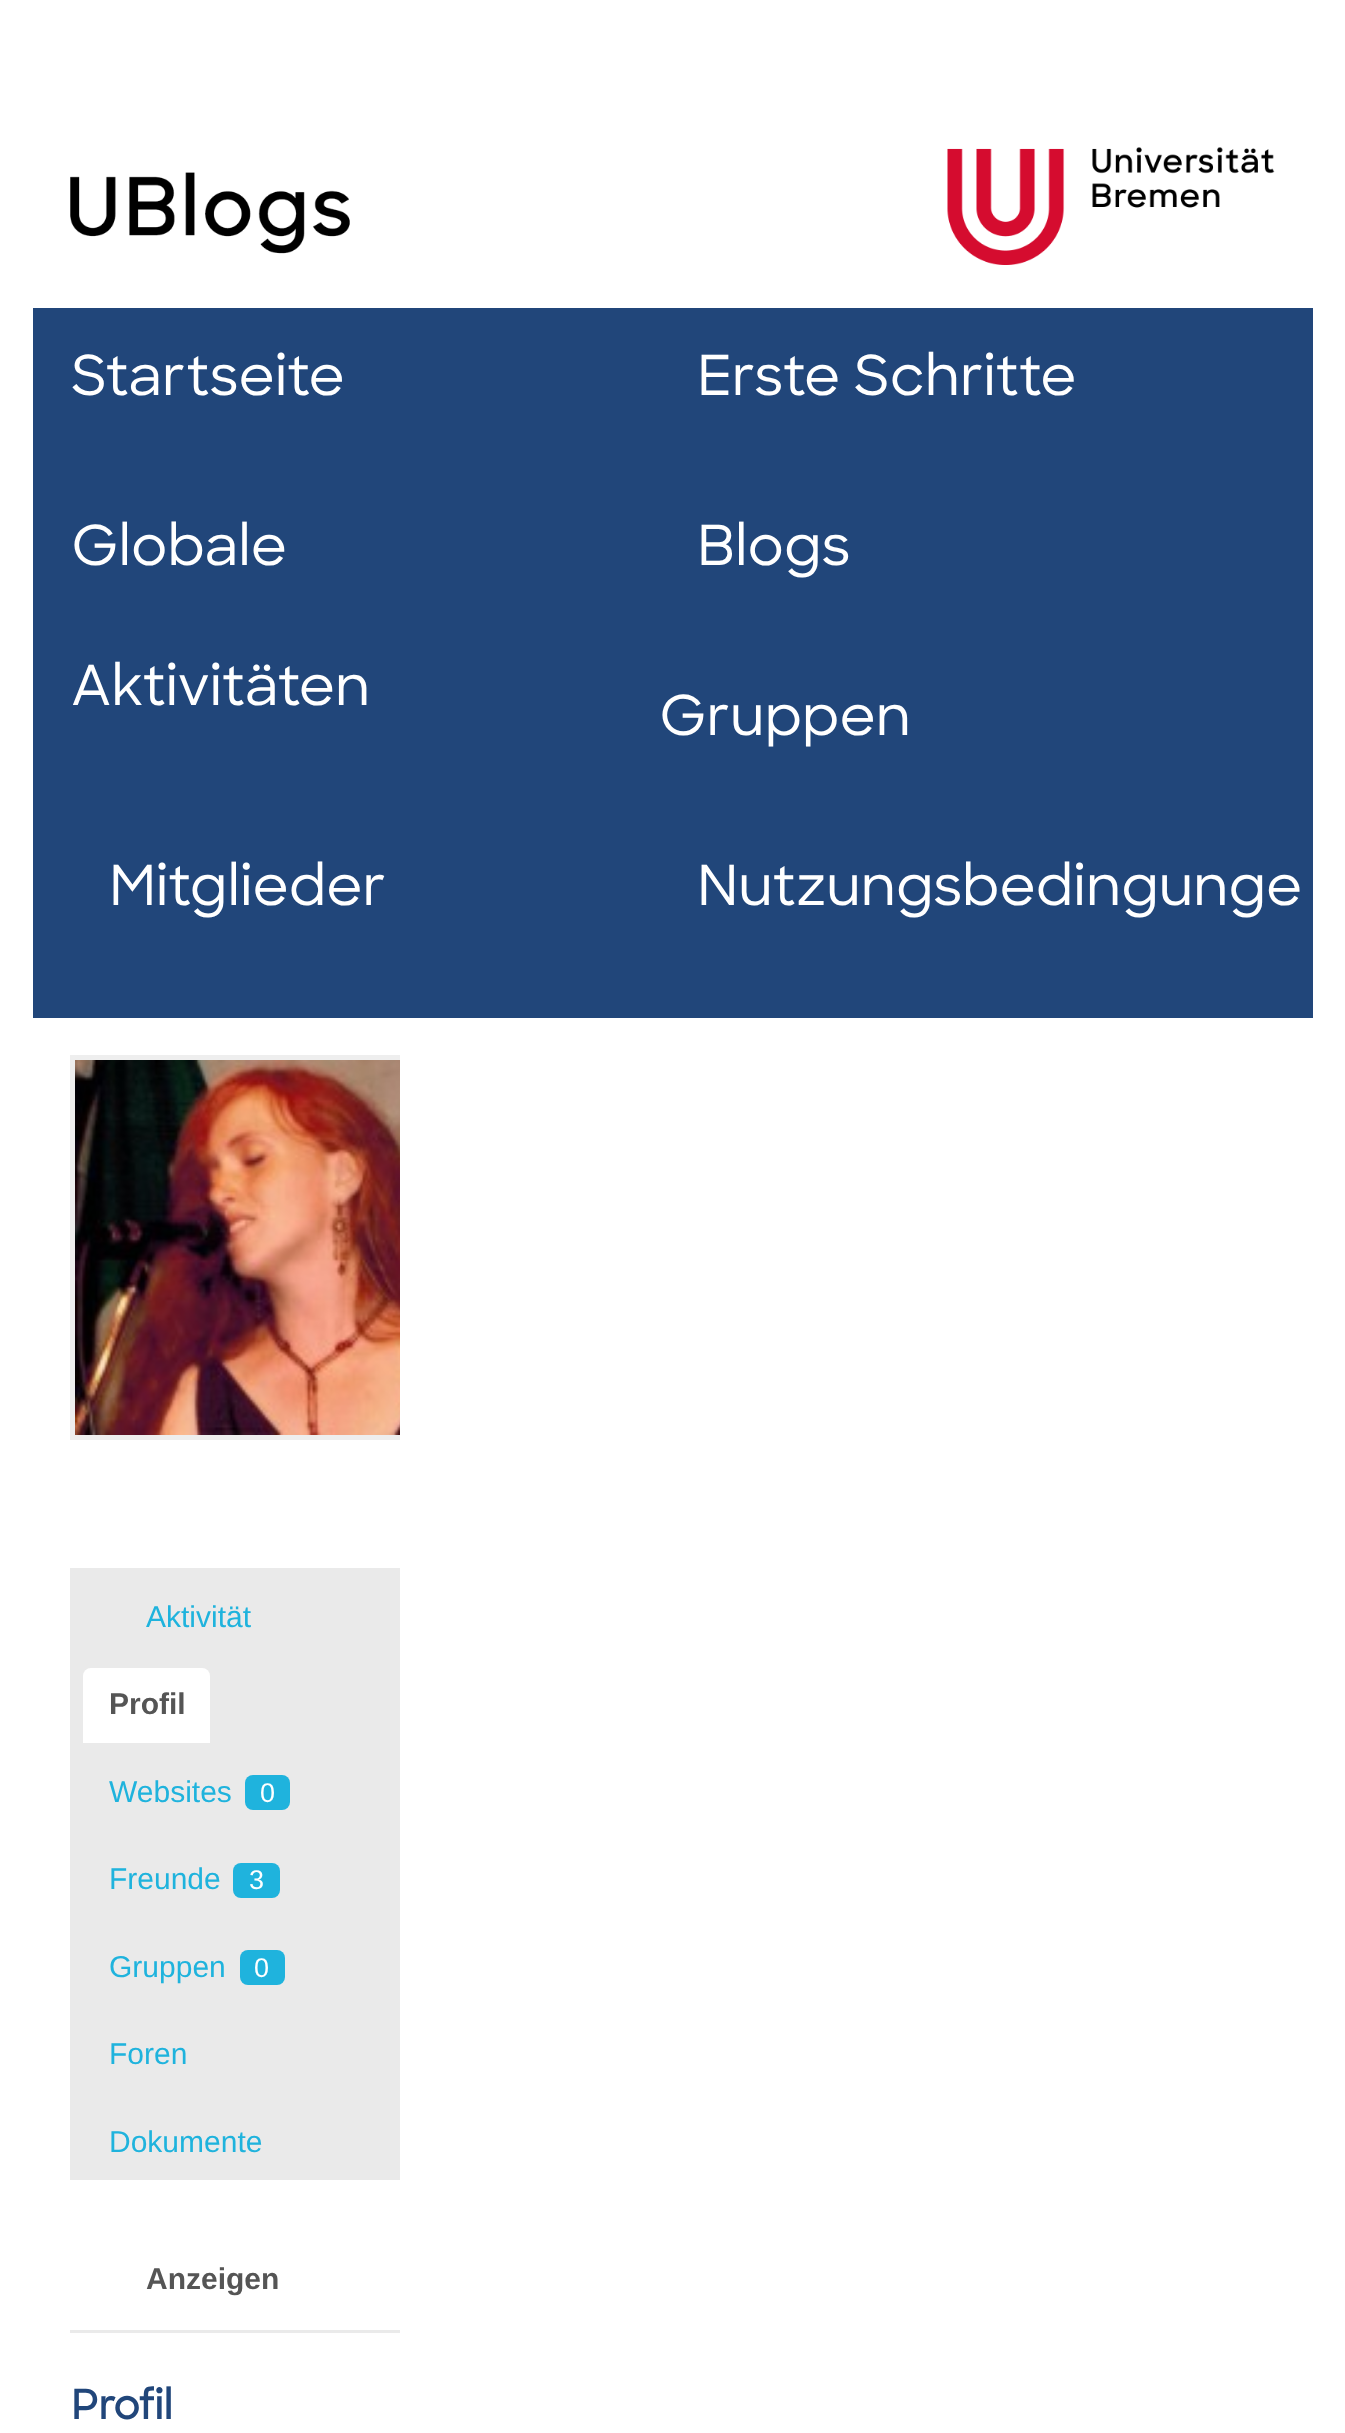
<!DOCTYPE html>
<meta charset="utf-8">
<style>body { margin: 0 } canvas { display: block }</style>
<canvas id="canvas" width="1345" height="2433"></canvas>
<img id="img1" src="img_01.png" hidden>
<img id="img2" src="img_02.png" hidden>
<img id="img3" src="img_03.png" hidden>
<script>
window.onload = function () {
	const canvas = document.getElementById("canvas");
	const ctx = canvas.getContext("2d");
	ctx.miterLimit = 4;
	ctx.fontKerning = "normal";
	function txt(s, x, y) {
		ctx.fillText(s, x, y);
	}
	function fill(x, y, w, h) {
		ctx.fillRect(x, y, w, h);
	}
	function round(x, y, w, h, r) {
		ctx.beginPath();
		ctx.roundRect(x, y, w, h, r);
		ctx.fill();
	}
	function img(id, x, y, w, h) {
		ctx.drawImage(document.getElementById(id), x, y, w, h);
	}

	ctx.fillStyle = "#FFFFFF";
	fill(0, 0, 1345, 2433);
	img("img1", 70, 172, 280, 82);
	img("img2", 947, 147, 328, 118);
	ctx.fillStyle = "#21467A";
	fill(33, 308, 1280, 710);
	ctx.save();
	ctx.beginPath();
	ctx.rect(70, 1055, 330, 450);
	ctx.clip();
	ctx.strokeStyle = "#EEEEEE";
	ctx.lineWidth = 5;
	ctx.strokeRect(72.5, 1057.5, 380, 380);
	ctx.restore();
	img("img3", 75, 1060, 325, 375);
	ctx.fillStyle = "#EAEAEA";
	fill(70, 1568, 330, 612);
	ctx.fillStyle = "#FFFFFF";
	ctx.beginPath();
	ctx.roundRect(83, 1668, 127, 75, [8, 8, 0, 0]);
	ctx.fill();
	ctx.fillStyle = "#1FB3DD";
	round(245, 1775, 45, 35, 8);
	round(233, 1863, 47, 35, 8);
	round(240, 1950, 45, 35, 8);
	ctx.fillStyle = "#EAEAEA";
	fill(70, 2330, 330, 3);
	ctx.font = "500 55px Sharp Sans";
	ctx.fillStyle = "#FFFFFF";
	txt("Startseite", 71, 395);
	txt("Erste Schritte", 697, 395);
	txt("Globale", 71, 565);
	txt("Aktivitäten", 71, 705);
	txt("Blogs", 697, 565);
	txt("Gruppen", 659, 735);
	txt("Mitglieder", 109, 905);
	txt("Nutzungsbedingunge", 697, 905);
	ctx.font = "30px Liberation Sans";
	ctx.fillStyle = "#1FB3DD";
	txt("Aktivität", 146, 1627);
	ctx.font = "bold 30px Liberation Sans";
	ctx.fillStyle = "#555555";
	txt("Profil", 109, 1714);
	ctx.font = "30px Liberation Sans";
	ctx.fillStyle = "#1FB3DD";
	txt("Websites", 109, 1802);
	ctx.font = "27px Liberation Sans";
	ctx.fillStyle = "#FFFFFF";
	txt("0", 260, 1802);
	ctx.font = "30px Liberation Sans";
	ctx.fillStyle = "#1FB3DD";
	txt("Freunde", 109, 1889);
	ctx.font = "27px Liberation Sans";
	ctx.fillStyle = "#FFFFFF";
	txt("3", 249, 1889);
	ctx.font = "30px Liberation Sans";
	ctx.fillStyle = "#1FB3DD";
	txt("Gruppen", 109, 1977);
	ctx.font = "27px Liberation Sans";
	ctx.fillStyle = "#FFFFFF";
	txt("0", 254, 1977);
	ctx.font = "30px Liberation Sans";
	ctx.fillStyle = "#1FB3DD";
	txt("Foren", 109, 2064);
	txt("Dokumente", 109, 2152);
	ctx.font = "bold 30px Liberation Sans";
	ctx.fillStyle = "#555555";
	txt("Anzeigen", 146, 2289);
	ctx.font = "bold 40px Sharp Sans";
	ctx.fillStyle = "#21467A";
	txt("Profil", 71, 2419);
};
</script>
